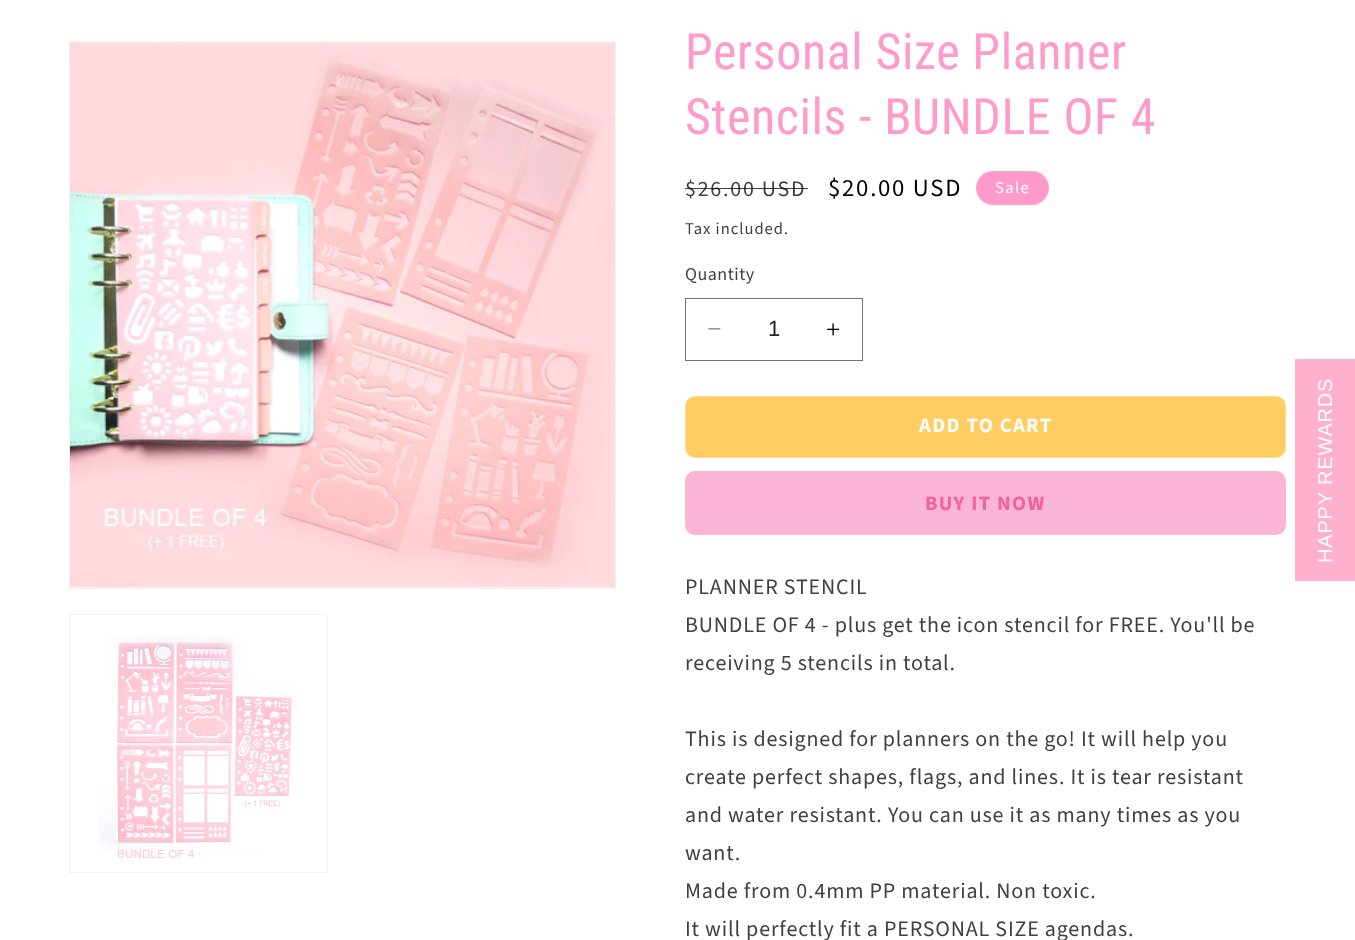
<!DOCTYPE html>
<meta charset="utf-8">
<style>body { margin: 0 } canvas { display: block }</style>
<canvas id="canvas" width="1355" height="940"></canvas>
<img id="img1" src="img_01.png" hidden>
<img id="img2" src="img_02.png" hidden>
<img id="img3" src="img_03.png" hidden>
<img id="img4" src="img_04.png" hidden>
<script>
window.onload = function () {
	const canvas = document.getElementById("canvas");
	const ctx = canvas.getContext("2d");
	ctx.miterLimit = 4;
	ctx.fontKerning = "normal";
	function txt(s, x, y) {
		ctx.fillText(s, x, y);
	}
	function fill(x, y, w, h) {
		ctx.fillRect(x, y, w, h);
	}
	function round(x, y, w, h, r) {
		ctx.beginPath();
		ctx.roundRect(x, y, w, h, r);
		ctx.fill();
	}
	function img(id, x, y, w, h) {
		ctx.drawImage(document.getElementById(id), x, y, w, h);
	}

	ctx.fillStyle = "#FFFFFF";
	fill(0, 0, 1355, 940);
	ctx.strokeStyle = "#F2F2F2";
	ctx.strokeRect(69.5, 41.5, 546, 547);
	img("img1", 70, 42, 545, 546);
	ctx.strokeRect(69.5, 614.5, 258, 258);
	img("img2", 98, 636, 200, 222);
	ctx.fillStyle = "#FF9ACA";
	round(976, 171, 73, 34, 17);
	ctx.beginPath();
	ctx.roundRect(976.5, 171.5, 72, 33, 16.5);
	ctx.strokeStyle = "rgba(255, 255, 255, 0.1)";
	ctx.stroke();
	img("img3", 708, 328, 13, 2);
	img("img4", 827, 323, 13, 13);
	ctx.strokeStyle = "#737373";
	ctx.strokeRect(685.5, 298.5, 177, 62);
	ctx.fillStyle = "#FFCE62";
	round(685, 396, 601, 62, 10);
	ctx.beginPath();
	ctx.roundRect(685.2, 396.2, 600.6, 61.6, 9.8);
	ctx.strokeStyle = "#FFFFFF";
	ctx.lineWidth = 0.4;
	ctx.stroke();
	ctx.fillStyle = "#FAB4D5";
	round(685, 471, 601, 64, 10);
	ctx.fillStyle = "#FFB0CC";
	fill(1295, 359, 60, 222);
	ctx.letterSpacing = "0.6px";
	ctx.font = "50px Roboto Condensed";
	ctx.fillStyle = "#FF9ACA";
	txt("Personal Size Planner", 685, 69);
	txt("Stencils - BUNDLE OF 4", 685, 134);
	ctx.letterSpacing = "1.75px";
	ctx.font = "22px Source Sans Pro";
	ctx.fillStyle = "#404040";
	txt("$26.00 USD", 685, 196);
	ctx.fillStyle = "rgba(0, 0, 0, 0.75)";
	fill(685, 188, 123, 1);
	ctx.font = "24.75px Source Sans Pro";
	ctx.fillStyle = "#000000";
	txt("$20.00 USD", 828, 196);
	ctx.letterSpacing = "1.4px";
	ctx.font = "16.5px Source Sans Pro";
	ctx.fillStyle = "#FFFFFF";
	txt("Sale", 995, 193);
	ctx.letterSpacing = "1px";
	ctx.fillStyle = "#404040";
	txt("Tax included.", 685, 234);
	ctx.letterSpacing = "0.5px";
	ctx.font = "18px Source Sans Pro";
	txt("Quantity", 685, 280);
	ctx.letterSpacing = "0px";
	ctx.font = "22px Liberation Sans";
	ctx.fillStyle = "#262626";
	txt("1", 768, 336);
	ctx.letterSpacing = "1.4px";
	ctx.font = "bold 20.5px Source Sans Pro";
	ctx.fillStyle = "#FFFFFF";
	txt("ADD TO CART", 919, 432);
	ctx.fillStyle = "#F1629B";
	txt("BUY IT NOW", 925, 510);
	ctx.letterSpacing = "0.83px";
	ctx.font = "22px Source Sans Pro";
	ctx.fillStyle = "#404040";
	txt("PLANNER STENCIL", 685, 594);
	txt("BUNDLE OF 4 - plus get the icon stencil for FREE. You'll be", 685, 632);
	txt("receiving 5 stencils in total.", 685, 670);
	txt("This is designed for planners on the go! It will help you", 685, 746);
	txt("create perfect shapes, flags, and lines. It is tear resistant", 685, 784);
	txt("and water resistant. You can use it as many times as you", 685, 822);
	txt("want.", 685, 860);
	txt("Made from 0.4mm PP material. Non toxic.", 685, 898);
	txt("It will perfectly fit a PERSONAL SIZE agendas.", 685, 936);
	ctx.font = "20px Liberation Sans";
	ctx.fillStyle = "#FFFFFF";
	ctx.save();
	ctx.translate(1332, 563);
	ctx.rotate(-90 * Math.PI / 180);
	ctx.fillText("HAPPY REWARDS", 0, 0);
	ctx.restore();
};
</script>
